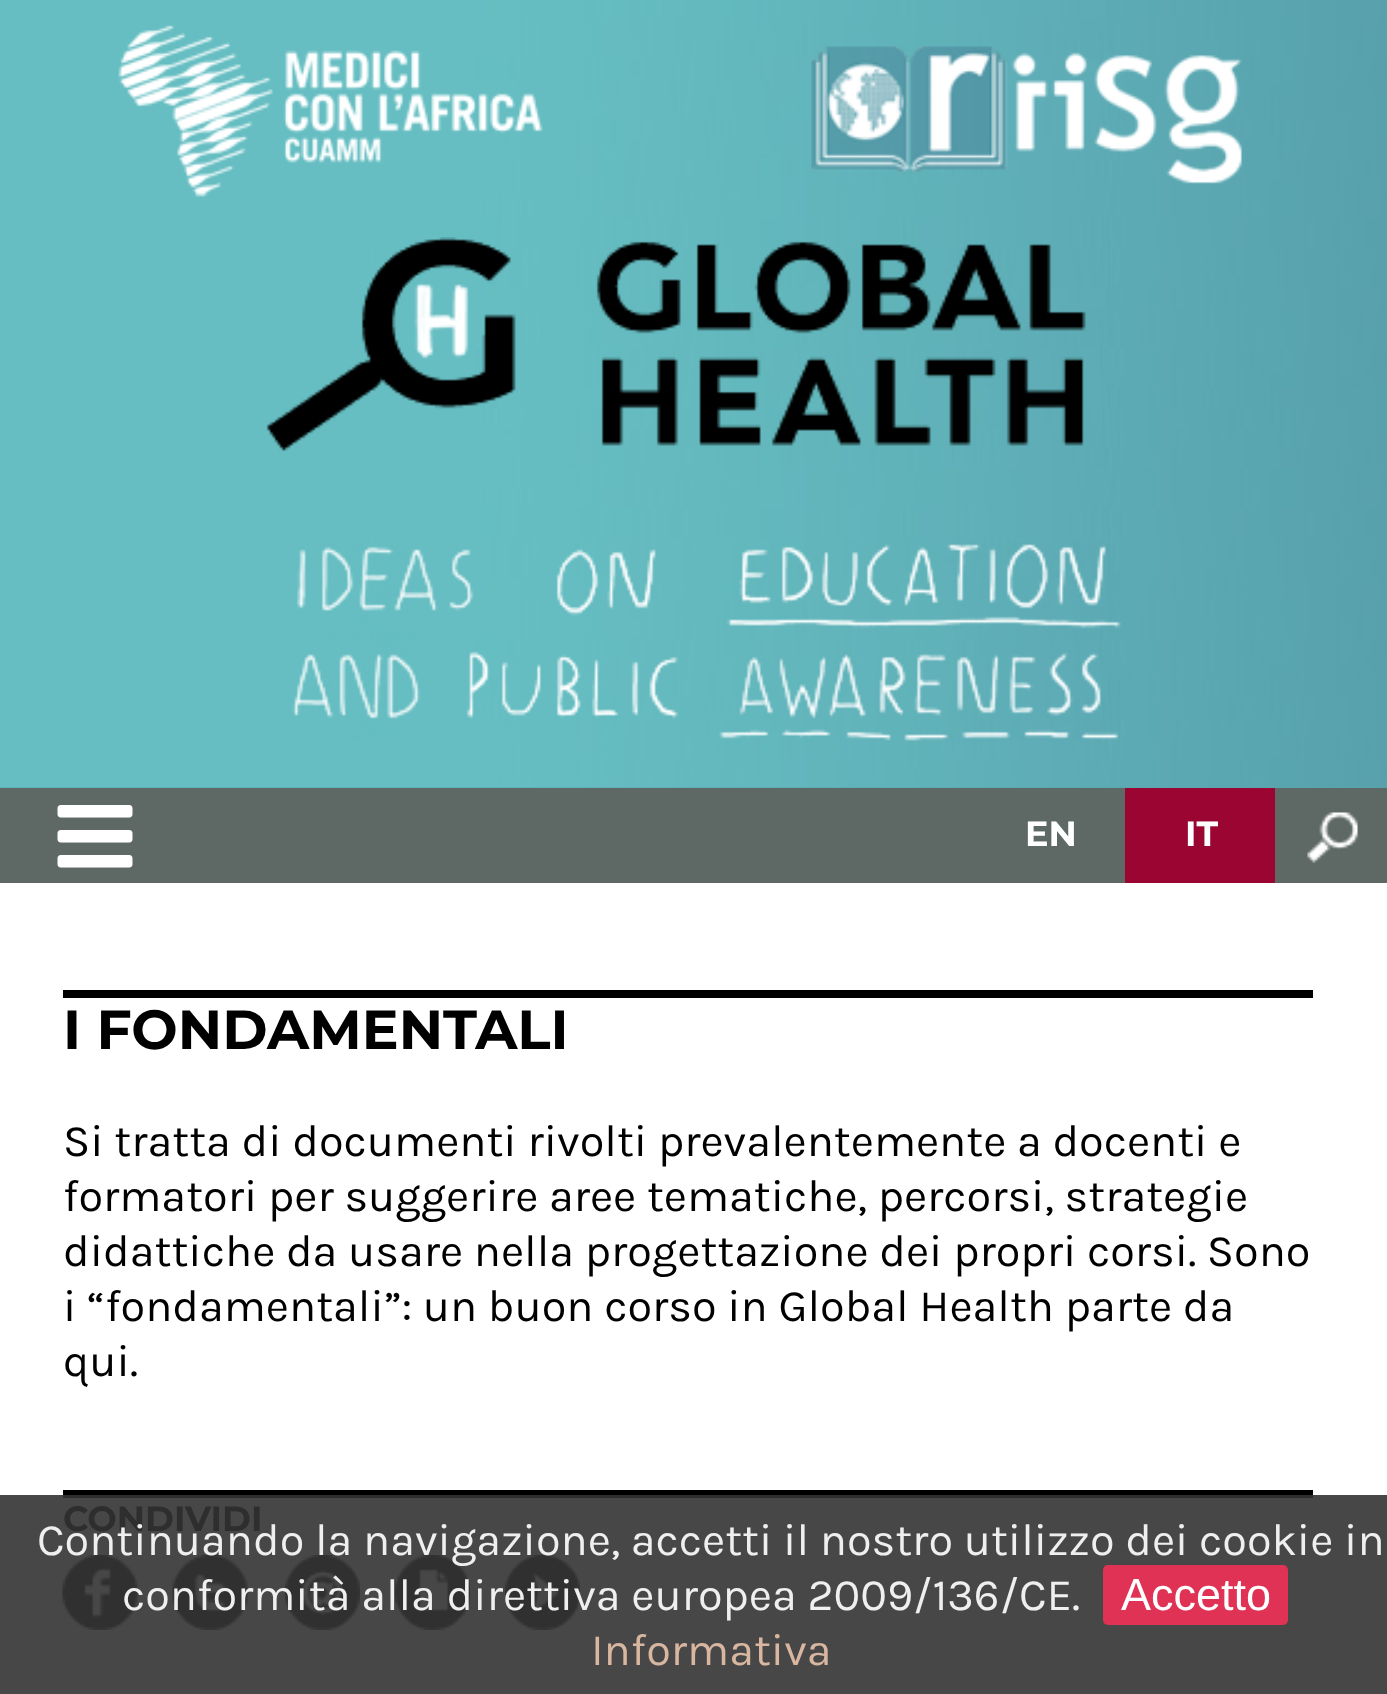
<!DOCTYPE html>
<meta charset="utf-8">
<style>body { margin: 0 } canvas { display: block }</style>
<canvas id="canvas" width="1387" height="1694"></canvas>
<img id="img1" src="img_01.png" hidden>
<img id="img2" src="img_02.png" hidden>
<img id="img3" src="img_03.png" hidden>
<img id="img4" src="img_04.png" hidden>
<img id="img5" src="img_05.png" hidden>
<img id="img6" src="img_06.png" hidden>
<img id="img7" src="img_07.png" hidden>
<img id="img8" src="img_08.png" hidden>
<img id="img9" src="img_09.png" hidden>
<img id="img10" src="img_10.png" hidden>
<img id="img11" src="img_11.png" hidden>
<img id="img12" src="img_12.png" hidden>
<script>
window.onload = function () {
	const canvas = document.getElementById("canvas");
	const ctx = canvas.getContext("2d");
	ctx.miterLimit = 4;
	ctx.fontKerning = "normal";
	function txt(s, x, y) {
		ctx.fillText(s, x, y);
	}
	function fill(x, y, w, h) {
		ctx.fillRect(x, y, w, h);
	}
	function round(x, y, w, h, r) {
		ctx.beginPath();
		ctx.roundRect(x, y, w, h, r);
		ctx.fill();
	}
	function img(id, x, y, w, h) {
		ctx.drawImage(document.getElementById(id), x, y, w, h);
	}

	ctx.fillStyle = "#FFFFFF";
	fill(0, 0, 1387, 1694);
	ctx.fillStyle = "#474747";
	fill(0, 1495, 1387, 199);
	ctx.fillStyle = "#59A4AF";
	fill(0, 787, 1387, 1);
	img("img1", 0, 0, 1387, 788);
	img("img2", 118, 25, 425, 172);
	img("img3", 811, 46, 431, 138);
	img("img4", 266, 237, 820, 214);
	img("img5", 292, 543, 829, 198);
	ctx.fillStyle = "#5E6965";
	fill(0, 788, 1387, 95);
	img("img6", 57, 805, 76, 63);
	ctx.fillStyle = "#9A0532";
	fill(1125, 788, 150, 95);
	img("img7", 1307, 812, 51, 51);
	ctx.fillStyle = "#000000";
	fill(63, 990, 1250, 8);
	fill(63, 1490, 1250, 5);
	ctx.fillStyle = "#2E2E2E";
	fill(63, 1495, 1250, 3);
	img("img8", 62, 1555, 76, 75);
	img("img9", 172, 1555, 76, 75);
	img("img10", 285, 1555, 75, 75);
	img("img11", 395, 1555, 75, 75);
	img("img12", 505, 1555, 75, 75);
	ctx.font = "bold 35px Montserrat";
	ctx.fillStyle = "#FFFFFF";
	txt("EN", 1025, 846);
	txt("IT", 1185, 846);
	ctx.font = "bold 55px Montserrat";
	ctx.fillStyle = "#000000";
	txt("I FONDAMENTALI", 63, 1049);
	ctx.font = "45px Karla";
	txt("Si tratta di documenti rivolti prevalentemente a docenti e", 63, 1156);
	txt("formatori per suggerire aree tematiche, percorsi, strategie", 63, 1211);
	txt("didattiche da usare nella progettazione dei propri corsi. Sono", 63, 1266);
	txt("i “fondamentali”: un buon corso in Global Health parte da", 63, 1321);
	txt("qui.", 63, 1376);
	ctx.font = "bold 35px Montserrat";
	ctx.fillStyle = "#2E2E2E";
	txt("CONDIVIDI", 63, 1531);
	ctx.font = "45px Karla";
	ctx.fillStyle = "#EFEFEF";
	txt("Continuando la navigazione, accetti il nostro utilizzo dei cookie in", 37, 1555);
	txt("conformità alla direttiva europea 2009/136/CE.", 122, 1610);
	ctx.fillStyle = "#E03255";
	round(1103, 1565, 185, 60, 5);
	ctx.font = "45px Liberation Sans";
	ctx.fillStyle = "#FFFFFF";
	txt("Accetto", 1121, 1610);
	ctx.font = "45px Karla";
	ctx.fillStyle = "#D8B69F";
	txt("Informativa", 591, 1665);
};
</script>
